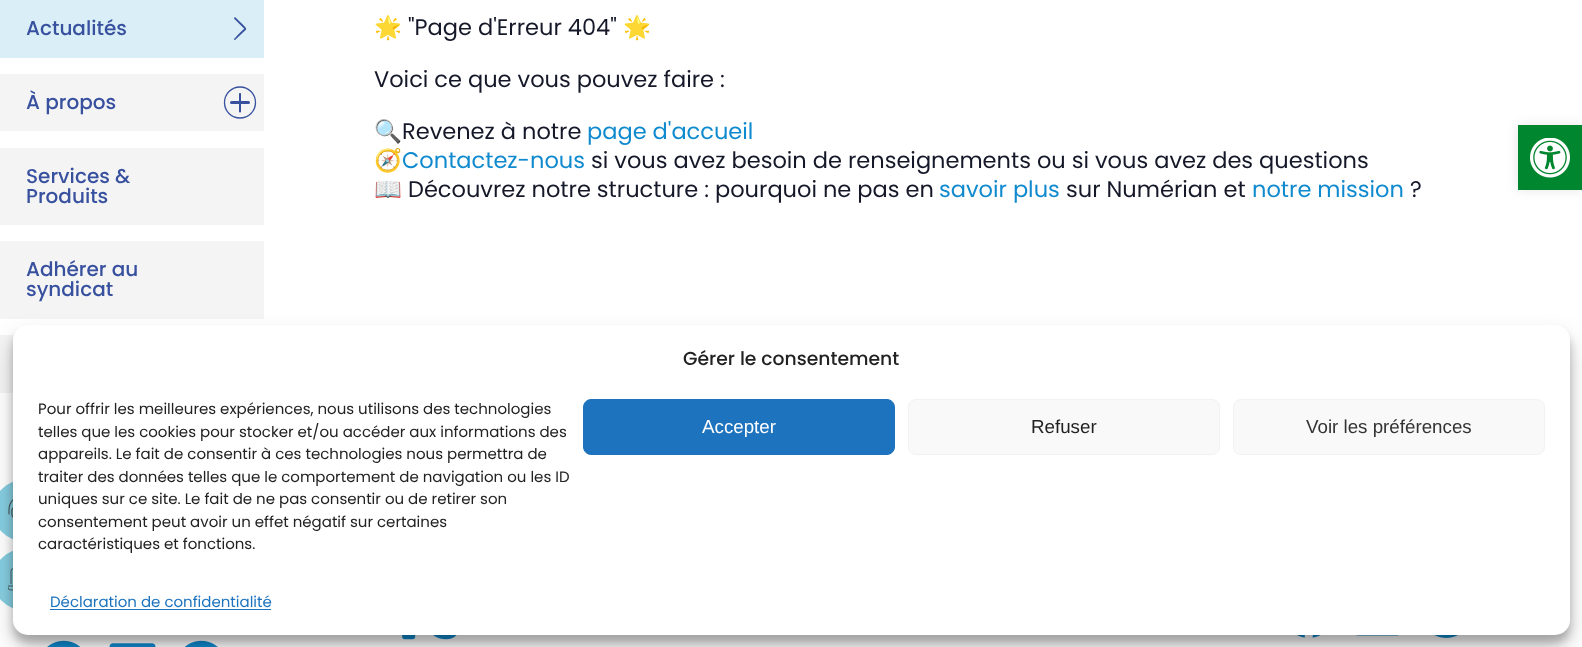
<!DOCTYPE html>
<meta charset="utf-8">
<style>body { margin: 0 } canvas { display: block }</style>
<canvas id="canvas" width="1582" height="647"></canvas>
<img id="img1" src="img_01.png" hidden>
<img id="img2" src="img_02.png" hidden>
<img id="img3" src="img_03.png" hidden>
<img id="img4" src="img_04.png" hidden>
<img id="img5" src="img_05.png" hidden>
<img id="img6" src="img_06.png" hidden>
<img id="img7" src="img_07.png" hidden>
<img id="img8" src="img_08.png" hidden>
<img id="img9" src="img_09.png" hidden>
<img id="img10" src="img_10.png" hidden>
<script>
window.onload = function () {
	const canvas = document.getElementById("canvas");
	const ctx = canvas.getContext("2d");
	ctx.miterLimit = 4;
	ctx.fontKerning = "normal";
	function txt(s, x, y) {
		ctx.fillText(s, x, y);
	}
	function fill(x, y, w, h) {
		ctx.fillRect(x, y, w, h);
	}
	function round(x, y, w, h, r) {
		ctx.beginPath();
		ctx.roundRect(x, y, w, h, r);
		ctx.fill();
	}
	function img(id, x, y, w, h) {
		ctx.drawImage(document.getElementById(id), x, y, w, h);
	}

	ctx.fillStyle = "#FFFFFF";
	fill(0, 0, 1582, 647);
	ctx.fillStyle = "#D9EEF6";
	fill(0, 0, 264, 58);
	ctx.fillStyle = "#38519F";
	ctx.beginPath();
	ctx.moveTo(235.5, 17.5);
	ctx.bezierCurveTo(237, 19, 246.5, 27.5, 246, 28.5);
	ctx.bezierCurveTo(245.5, 30.5, 243, 27.5, 243, 27.5);
	ctx.lineTo(234, 18.5);
	ctx.bezierCurveTo(234, 17.5, 235, 17, 235.5, 17.5);
	ctx.closePath();
	ctx.fill();
	ctx.beginPath();
	ctx.moveTo(234.5, 38.5);
	ctx.bezierCurveTo(236, 37, 244.5, 27.5, 245.5, 28);
	ctx.bezierCurveTo(247.5, 29, 244.5, 31, 244, 31.5);
	ctx.lineTo(235, 40);
	ctx.bezierCurveTo(234.5, 40.5, 233.5, 39, 234.5, 38.5);
	ctx.closePath();
	ctx.fill();
	ctx.fillStyle = "#F4F4F5";
	fill(0, 74, 264, 57);
	ctx.beginPath();
	ctx.moveTo(251, 91.5);
	ctx.bezierCurveTo(257, 97.5, 257, 107.5, 251, 113.5);
	ctx.bezierCurveTo(245, 119.5, 235, 119.5, 229, 113.5);
	ctx.bezierCurveTo(223, 107.5, 223, 97.5, 229, 91.5);
	ctx.bezierCurveTo(235, 85.5, 245, 85.5, 251, 91.5);
	ctx.closePath();
	ctx.moveTo(251, 91.5);
	ctx.bezierCurveTo(257, 97.5, 257, 107.5, 251, 113.5);
	ctx.bezierCurveTo(245, 119.5, 235, 119.5, 229, 113.5);
	ctx.bezierCurveTo(223, 107.5, 223, 97.5, 229, 91.5);
	ctx.bezierCurveTo(235, 85.5, 245, 85.5, 251, 91.5);
	ctx.closePath();
	ctx.strokeStyle = "#38519F";
	ctx.lineWidth = 1.3;
	ctx.stroke();
	ctx.fillStyle = "#38519F";
	ctx.beginPath();
	ctx.moveTo(241, 94);
	ctx.lineTo(241, 111.5);
	ctx.bezierCurveTo(241, 112, 240.5, 112.5, 240, 112.5);
	ctx.bezierCurveTo(239.5, 112.5, 239, 112, 239, 111.5);
	ctx.lineTo(239, 94);
	ctx.bezierCurveTo(239, 93, 239.5, 93, 240, 93);
	ctx.bezierCurveTo(240.5, 93, 241, 93, 241, 94);
	ctx.closePath();
	ctx.fill();
	round(230, 101, 20, 3, 1.5);
	ctx.fillStyle = "#F4F4F5";
	fill(0, 148, 264, 77);
	fill(0, 241, 264, 78);
	fill(0, 335, 14, 58);
	ctx.fillStyle = "#86CEE1";
	ctx.beginPath();
	ctx.arc(23.5, 510.5, 30.5, 0, Math.PI * 2);
	ctx.fill();
	img("img1", 8, 499, 5, 19);
	ctx.beginPath();
	ctx.arc(23.5, 579.5, 30.5, 0, Math.PI * 2);
	ctx.fill();
	img("img2", 8, 568, 5, 23);
	img("img3", 47, 640, 34, 7);
	img("img4", 109, 643, 47, 4);
	img("img5", 184, 640, 34, 7);
	img("img6", 402, 635, 55, 5);
	img("img7", 1297, 635, 24, 3);
	img("img8", 1356, 635, 43, 1);
	img("img9", 1434, 635, 24, 3);
	ctx.fillStyle = "rgba(0, 0, 0, 0.1)";
	ctx.filter = "blur(6px)";
	ctx.beginPath();
	ctx.rect(1518, 125, 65, 65);
	ctx.fill();
	ctx.filter = "none";
	ctx.fillStyle = "#00862E";
	fill(1518, 125, 64, 65);
	img("img10", 1530, 138, 40, 40);
	ctx.fillStyle = "rgba(0, 0, 0, 0.23)";
	ctx.filter = "blur(4px)";
	ctx.beginPath();
	ctx.roundRect(13, 333, 1557, 310, 15);
	ctx.fill();
	ctx.filter = "none";
	ctx.fillStyle = "rgba(0, 0, 0, 0.19)";
	ctx.filter = "blur(12.5px)";
	ctx.beginPath();
	ctx.roundRect(13, 338, 1557, 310, 15);
	ctx.fill();
	ctx.filter = "none";
	ctx.fillStyle = "#FFFFFF";
	round(13, 325, 1557, 310, 15);
	ctx.fillStyle = "#1E73BE";
	ctx.beginPath();
	ctx.roundRect(583.5, 399.5, 311, 55, 7.5);
	ctx.fill();
	ctx.strokeStyle = "#1E73BE";
	ctx.lineWidth = 1;
	ctx.stroke();
	ctx.fillStyle = "#F9F9F9";
	ctx.beginPath();
	ctx.roundRect(908.5, 399.5, 311, 55, 7.5);
	ctx.fill();
	ctx.strokeStyle = "#F2F2F2";
	ctx.stroke();
	ctx.beginPath();
	ctx.roundRect(1233.5, 399.5, 311, 55, 7.5);
	ctx.fill();
	ctx.stroke();
	ctx.fillStyle = "#1E73BE";
	fill(50, 609, 221, 1);
	ctx.font = "500 20px Poppins";
	ctx.fillStyle = "#38519F";
	txt("Actualités", 26, 35);
	txt("À propos", 26, 109);
	txt("Services &", 26, 183);
	txt("Produits", 26, 203);
	txt("Adhérer au", 26, 276);
	txt("syndicat", 26, 296);
	ctx.font = "22.5px Noto Color Emoji";
	ctx.fillStyle = "#151828";
	txt("🌟", 374, 35);
	ctx.font = "22.5px Poppins";
	txt("\"Page d'Erreur 404\"", 408, 35);
	ctx.font = "22.5px Noto Color Emoji";
	txt("🌟", 623, 35);
	ctx.font = "22.5px Poppins";
	txt("Voici ce que vous pouvez faire :", 374, 87);
	ctx.font = "22.5px Noto Color Emoji";
	txt("🔍", 374, 139);
	ctx.font = "22.5px Poppins";
	txt("Revenez à notre", 402, 139);
	ctx.fillStyle = "#108ACF";
	txt("page d'accueil", 587, 139);
	ctx.font = "22.5px Noto Color Emoji";
	ctx.fillStyle = "#151828";
	txt("🧭", 374, 168);
	ctx.font = "22.5px Poppins";
	ctx.fillStyle = "#108ACF";
	txt("Contactez-nous", 402, 168);
	ctx.fillStyle = "#151828";
	txt("si vous avez besoin de renseignements ou si vous avez des questions", 591, 168);
	ctx.font = "22.5px Noto Color Emoji";
	txt("📖", 374, 197);
	ctx.font = "22.5px Poppins";
	txt("Découvrez notre structure : pourquoi ne pas en", 408, 197);
	ctx.fillStyle = "#108ACF";
	txt("savoir plus", 939, 197);
	ctx.fillStyle = "#151828";
	txt("sur Numérian et", 1066, 197);
	ctx.fillStyle = "#108ACF";
	txt("notre mission", 1252, 197);
	ctx.fillStyle = "#151828";
	txt("?", 1410, 197);
	ctx.font = "500 18.75px Poppins";
	ctx.fillStyle = "#222222";
	txt("Gérer le consentement", 683, 365);
	ctx.font = "15px Poppins";
	txt("Pour offrir les meilleures expériences, nous utilisons des technologies", 38, 414);
	txt("telles que les cookies pour stocker et/ou accéder aux informations des", 38, 437);
	txt("appareils. Le fait de consentir à ces technologies nous permettra de", 38, 459);
	txt("traiter des données telles que le comportement de navigation ou les ID", 38, 482);
	txt("uniques sur ce site. Le fait de ne pas consentir ou de retirer son", 38, 504);
	txt("consentement peut avoir un effet négatif sur certaines", 38, 527);
	txt("caractéristiques et fonctions.", 38, 549);
	ctx.font = "18.75px Liberation Sans";
	ctx.fillStyle = "#FFFFFF";
	txt("Accepter", 702, 433);
	ctx.fillStyle = "#222222";
	txt("Refuser", 1031, 433);
	ctx.fillStyle = "#333333";
	txt("Voir les préférences", 1306, 433);
	ctx.font = "15px Poppins";
	ctx.fillStyle = "#1E73BE";
	txt("Déclaration de confidentialité", 50, 607);
};
</script>
